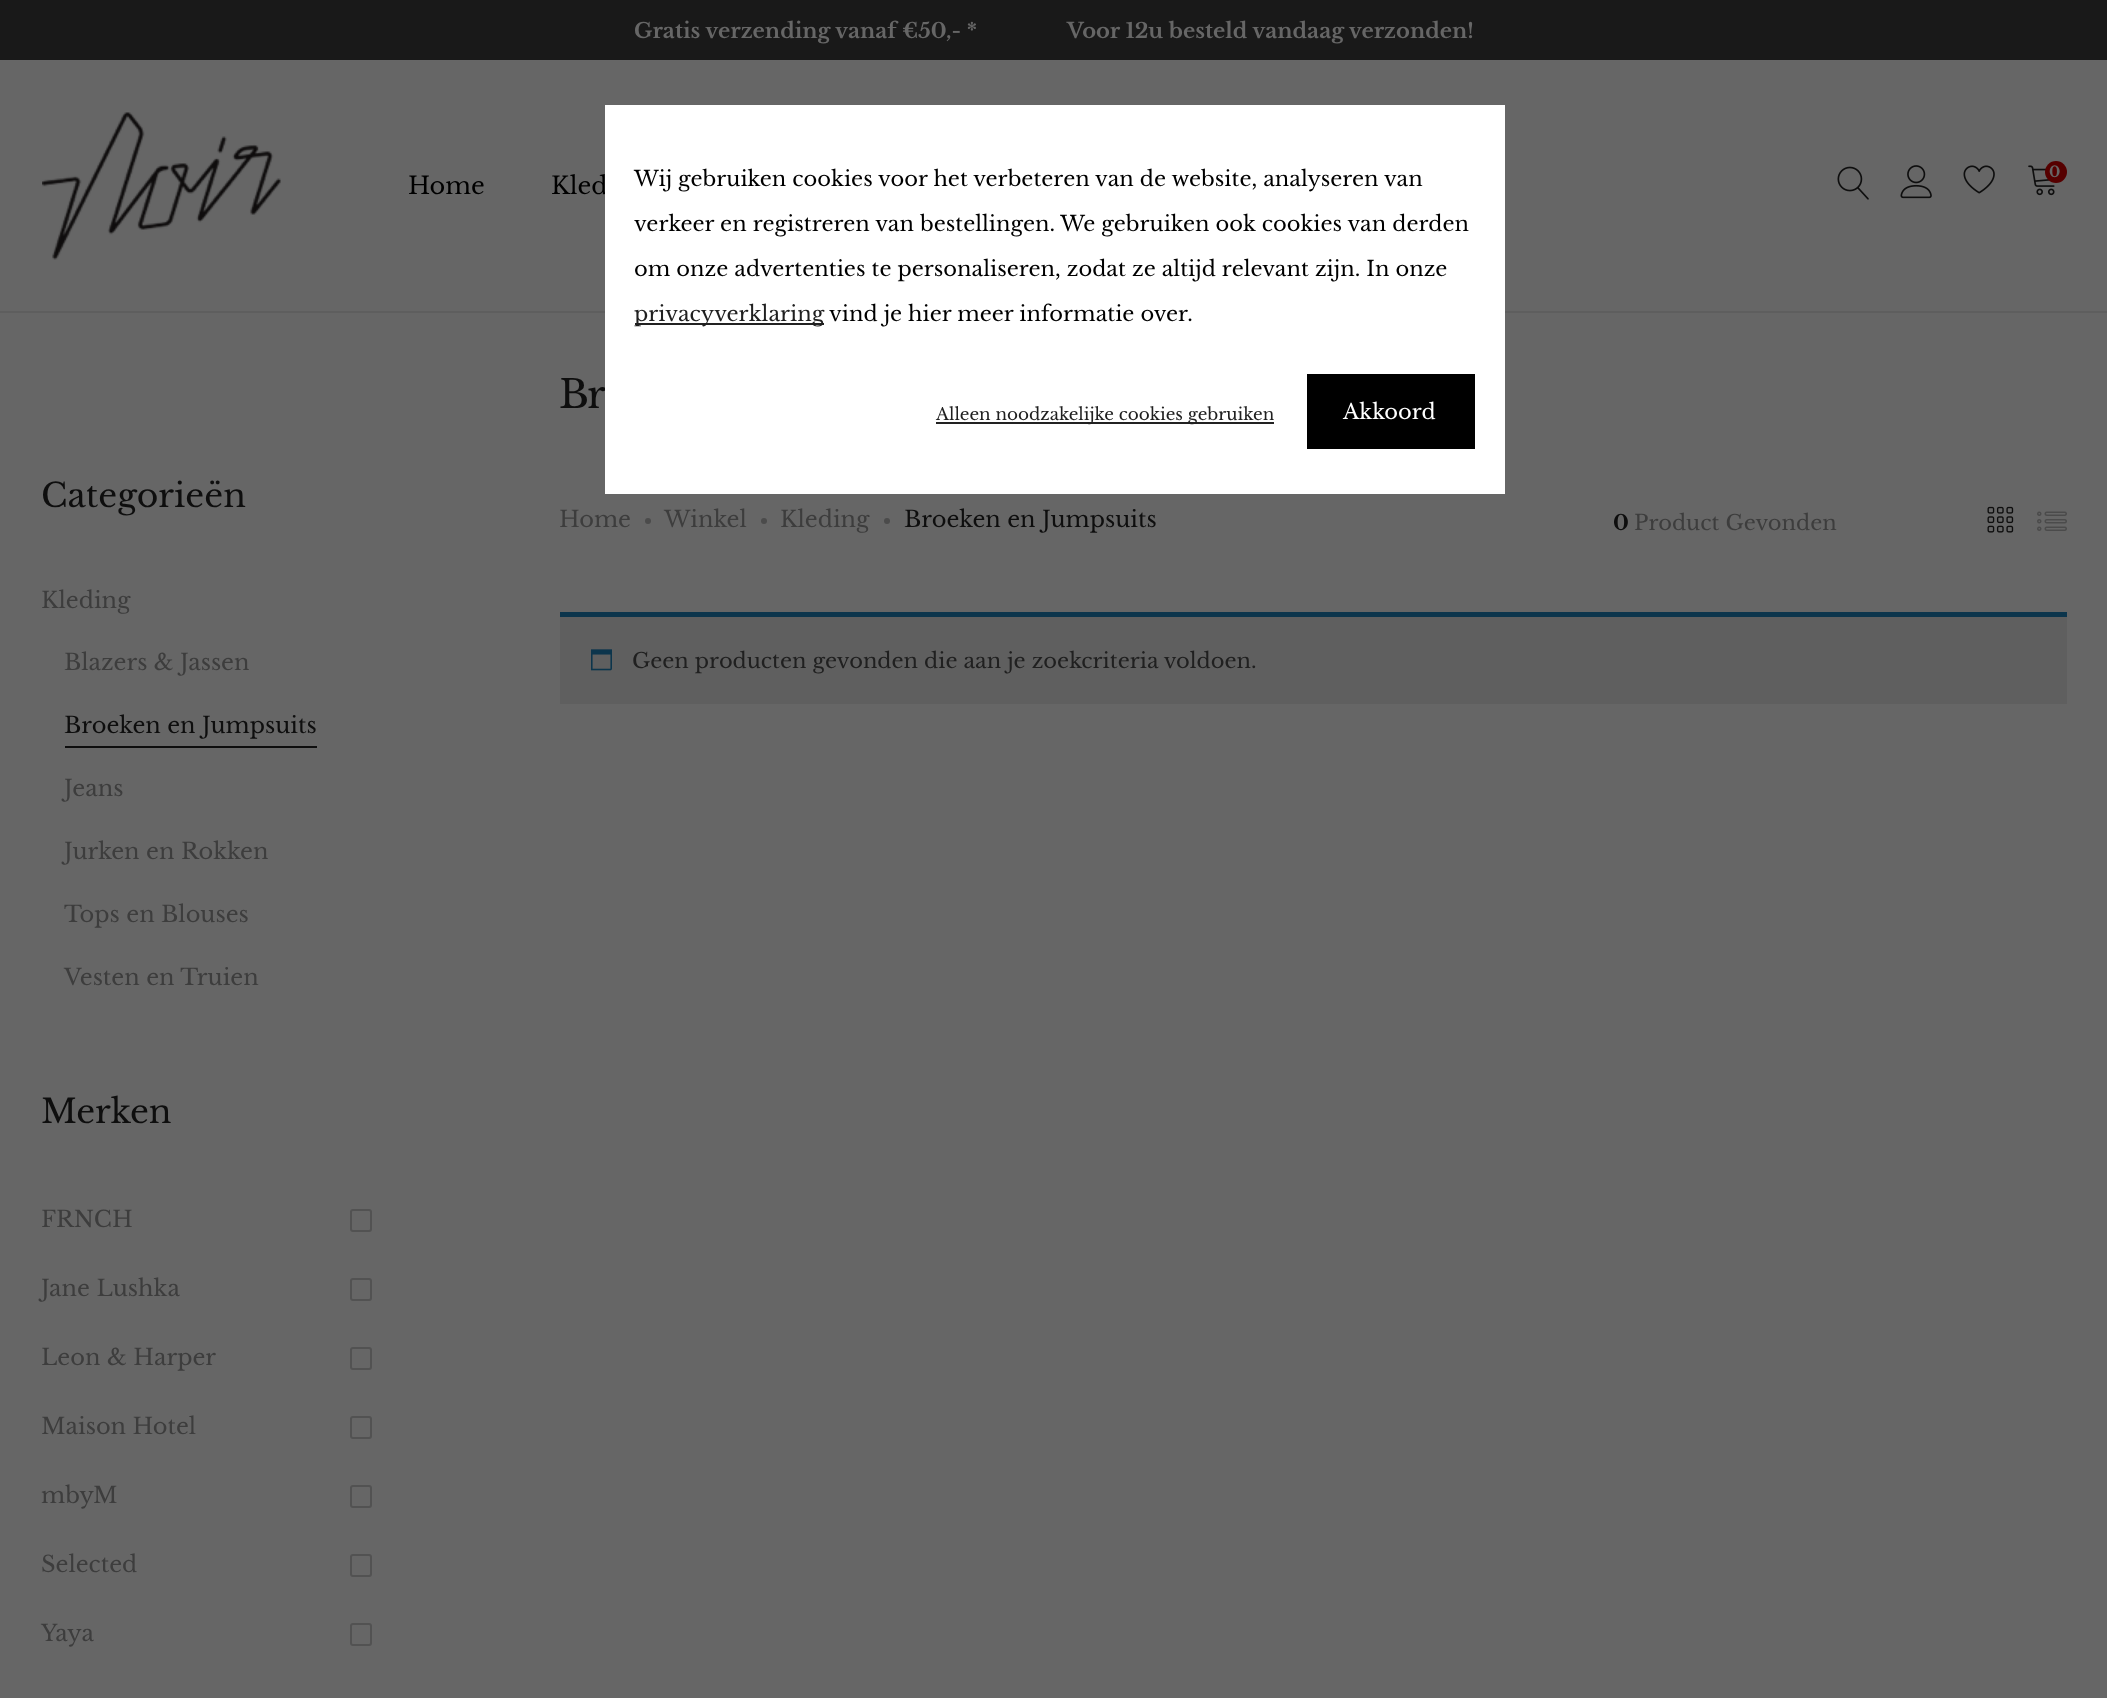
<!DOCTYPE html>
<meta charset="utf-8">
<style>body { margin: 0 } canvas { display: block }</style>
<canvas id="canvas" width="2107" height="1698"></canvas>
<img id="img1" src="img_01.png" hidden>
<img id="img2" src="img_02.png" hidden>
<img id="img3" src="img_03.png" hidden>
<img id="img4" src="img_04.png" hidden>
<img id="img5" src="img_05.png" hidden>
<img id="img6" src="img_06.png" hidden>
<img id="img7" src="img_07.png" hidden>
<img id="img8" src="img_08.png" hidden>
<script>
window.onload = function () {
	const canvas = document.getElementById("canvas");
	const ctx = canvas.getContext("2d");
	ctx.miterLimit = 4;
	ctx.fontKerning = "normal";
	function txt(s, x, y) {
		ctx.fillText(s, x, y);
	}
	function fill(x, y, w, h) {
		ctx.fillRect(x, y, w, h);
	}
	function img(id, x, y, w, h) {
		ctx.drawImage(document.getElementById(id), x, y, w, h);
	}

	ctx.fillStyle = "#666666";
	fill(0, 0, 2107, 1698);
	ctx.fillStyle = "#191919";
	fill(0, 0, 2107, 60);
	ctx.fillStyle = "#5E5E5E";
	fill(0, 311, 2107, 2);
	img("img1", 42, 112, 239, 148);
	img("img2", 1837, 166, 32, 34);
	img("img3", 1900, 165, 32, 34);
	img("img4", 1963, 165, 32, 29);
	img("img5", 2028, 165, 27, 31);
	ctx.fillStyle = "#560000";
	ctx.beginPath();
	ctx.arc(2056, 172, 11, 0, Math.PI * 2);
	ctx.fill();
	ctx.fillStyle = "#0E0E0E";
	fill(65, 746, 252, 2);
	ctx.beginPath();
	ctx.roundRect(351, 1210, 20, 21, 2);
	ctx.strokeStyle = "#525252";
	ctx.lineWidth = 2;
	ctx.stroke();
	ctx.beginPath();
	ctx.roundRect(351, 1279, 20, 21, 2);
	ctx.stroke();
	ctx.beginPath();
	ctx.roundRect(351, 1348, 20, 21, 2);
	ctx.stroke();
	ctx.beginPath();
	ctx.roundRect(351, 1417, 20, 21, 2);
	ctx.stroke();
	ctx.beginPath();
	ctx.roundRect(351, 1486, 20, 21, 2);
	ctx.stroke();
	ctx.beginPath();
	ctx.roundRect(351, 1555, 20, 21, 2);
	ctx.stroke();
	ctx.beginPath();
	ctx.roundRect(351, 1624, 20, 21, 2);
	ctx.stroke();
	ctx.fillStyle = "#4B4B4B";
	ctx.beginPath();
	ctx.arc(648, 521, 3, 0, Math.PI * 2);
	ctx.fill();
	ctx.beginPath();
	ctx.arc(764, 521, 3, 0, Math.PI * 2);
	ctx.fill();
	ctx.beginPath();
	ctx.arc(887, 521, 3, 0, Math.PI * 2);
	ctx.fill();
	img("img6", 1987, 506, 27, 27);
	img("img7", 2037, 511, 30, 20);
	ctx.fillStyle = "#5F5F5F";
	fill(560, 617, 1507, 87);
	ctx.fillStyle = "#0C354C";
	fill(560, 612, 1507, 5);
	img("img8", 591, 649, 21, 22);
	ctx.font = "bold 21px Libre Baskerville";
	ctx.fillStyle = "#666666";
	txt("Gratis verzending vanaf €50,- *", 634, 38);
	txt("Voor 12u besteld vandaag verzonden!", 1067, 38);
	ctx.font = "bold 15px Libre Baskerville";
	txt("0", 2049, 177);
	ctx.font = "24px Libre Baskerville";
	ctx.fillStyle = "#000000";
	txt("Home", 408, 194);
	txt("Kled", 551, 194);
	ctx.font = "33px Libre Baskerville";
	ctx.fillStyle = "#0E0E0E";
	txt("Categorieën", 41, 507);
	ctx.font = "22.5px Libre Baskerville";
	ctx.fillStyle = "#3D3D3D";
	txt("Kleding", 41, 608);
	txt("Blazers & Jassen", 64, 670);
	ctx.fillStyle = "#0E0E0E";
	txt("Broeken en Jumpsuits", 64, 733);
	ctx.fillStyle = "#3D3D3D";
	txt("Jeans", 64, 796);
	txt("Jurken en Rokken", 64, 859);
	txt("Tops en Blouses", 64, 922);
	txt("Vesten en Truien", 64, 985);
	ctx.font = "33px Libre Baskerville";
	ctx.fillStyle = "#0E0E0E";
	txt("Merken", 41, 1123);
	ctx.font = "22.5px Libre Baskerville";
	ctx.fillStyle = "#3D3D3D";
	txt("FRNCH", 41, 1227);
	txt("Jane Lushka", 41, 1296);
	txt("Leon & Harper", 41, 1365);
	txt("Maison Hotel", 41, 1434);
	txt("mbyM", 41, 1503);
	txt("Selected", 41, 1572);
	txt("Yaya", 41, 1641);
	ctx.letterSpacing = "-2px";
	ctx.font = "39px Libre Baskerville";
	ctx.fillStyle = "#0E0E0E";
	txt("Br", 559, 408);
	ctx.letterSpacing = "0px";
	ctx.font = "22.5px Libre Baskerville";
	ctx.fillStyle = "#3D3D3D";
	txt("Home", 559, 527);
	txt("Winkel", 664, 527);
	txt("Kleding", 780, 527);
	ctx.fillStyle = "#0E0E0E";
	txt("Broeken en Jumpsuits", 904, 527);
	ctx.font = "bold 21px Libre Baskerville";
	txt("0", 1613, 530);
	ctx.font = "21px Libre Baskerville";
	ctx.fillStyle = "#3D3D3D";
	txt("Product Gevonden", 1634, 530);
	ctx.fillStyle = "#202020";
	txt("Geen producten gevonden die aan je zoekcriteria voldoen.", 632, 668);
	ctx.fillStyle = "#FFFFFF";
	fill(605, 105, 900, 389);
	ctx.fillStyle = "#000000";
	txt("Wij gebruiken cookies voor het verbeteren van de website, analyseren van", 634, 186);
	txt("verkeer en registreren van bestellingen. We gebruiken ook cookies van derden", 634, 231);
	txt("om onze advertenties te personaliseren, zodat ze altijd relevant zijn. In onze", 634, 276);
	ctx.fillStyle = "#222222";
	fill(635, 323, 189, 2);
	ctx.fillStyle = "#202020";
	txt("privacyverklaring", 634, 321);
	ctx.fillStyle = "#000000";
	txt("vind je hier meer informatie over.", 829, 321);
	ctx.fillStyle = "#222222";
	fill(936, 422, 338, 2);
	ctx.font = "16.8px Libre Baskerville";
	ctx.fillStyle = "#202020";
	txt("Alleen noodzakelijke cookies gebruiken", 936, 420);
	ctx.fillStyle = "#000000";
	fill(1307, 374, 168, 75);
	ctx.font = "21px Libre Baskerville";
	ctx.fillStyle = "#FFFFFF";
	txt("Akkoord", 1343, 419);
};
</script>
